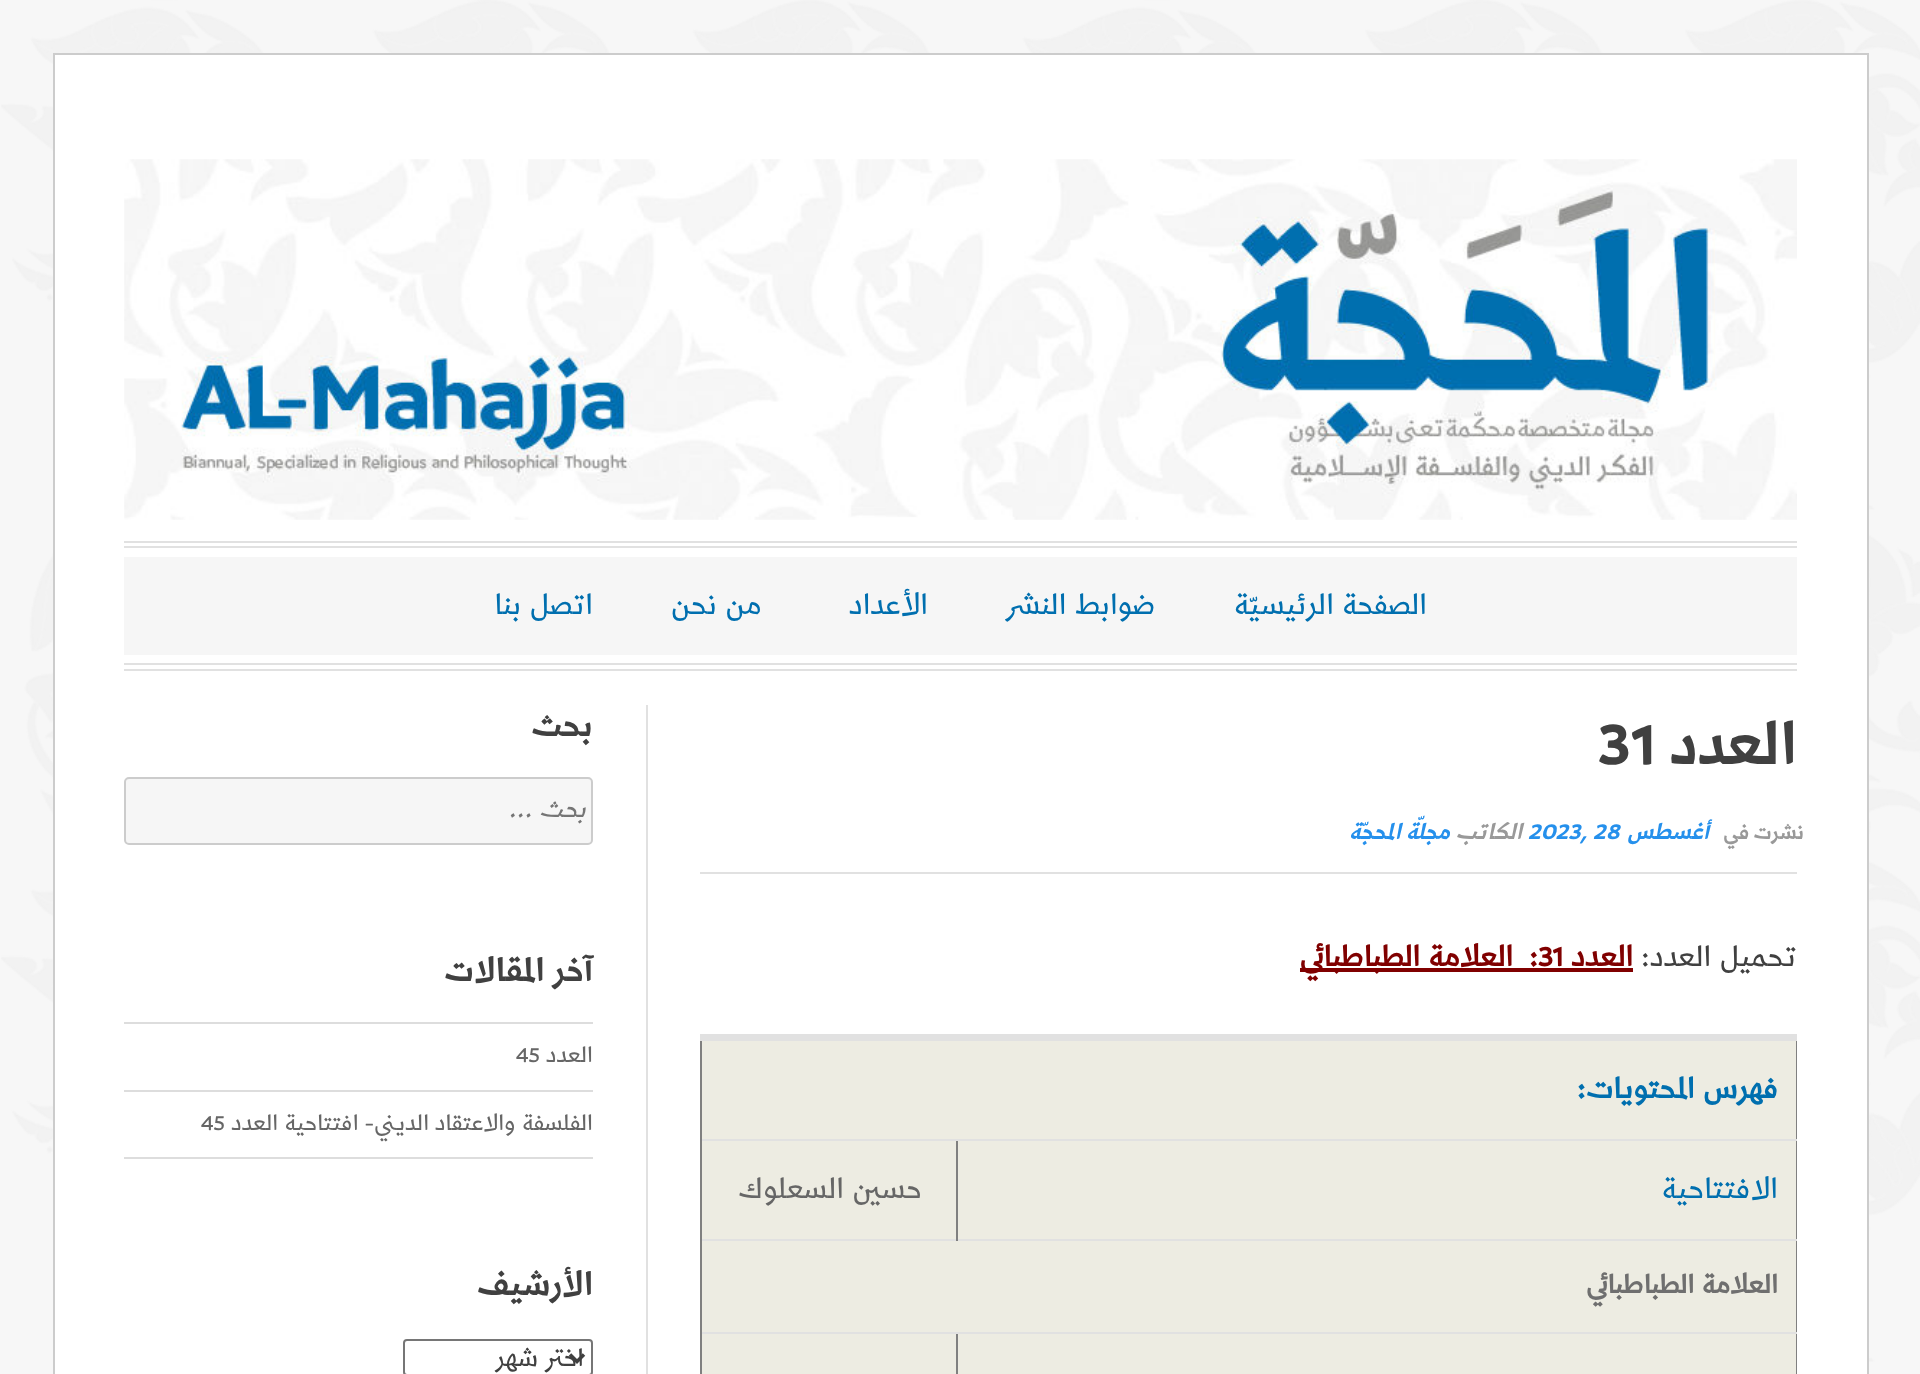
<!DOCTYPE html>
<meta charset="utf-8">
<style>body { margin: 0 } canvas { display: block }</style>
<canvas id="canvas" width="1920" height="1374"></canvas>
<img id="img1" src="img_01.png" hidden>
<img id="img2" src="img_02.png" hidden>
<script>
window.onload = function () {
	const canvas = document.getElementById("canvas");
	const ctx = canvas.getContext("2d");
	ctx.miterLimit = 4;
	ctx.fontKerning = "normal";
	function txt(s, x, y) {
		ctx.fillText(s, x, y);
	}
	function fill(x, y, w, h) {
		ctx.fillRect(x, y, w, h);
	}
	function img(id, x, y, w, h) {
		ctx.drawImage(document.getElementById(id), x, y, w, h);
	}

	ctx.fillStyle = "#F7F7F7";
	fill(0, 0, 1920, 1374);
	img("img1", 1, 0, 1919, 1362);
	ctx.fillStyle = "#FFFFFF";
	ctx.beginPath();
	ctx.rect(54, 54, 1814, 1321);
	ctx.fill();
	ctx.strokeStyle = "#CCCCCC";
	ctx.lineWidth = 2;
	ctx.stroke();
	img("img2", 124, 159, 1673, 361);
	ctx.fillStyle = "#E1E1E1";
	fill(124, 541, 1673, 2);
	fill(124, 546, 1673, 2);
	fill(124, 663, 1673, 2);
	fill(124, 669, 1673, 2);
	ctx.fillStyle = "#F6F6F6";
	fill(124, 557, 1673, 98);
	ctx.fillStyle = "#E1E1E1";
	fill(700, 872, 1097, 2);
	ctx.fillStyle = "#800000";
	fill(1300, 968, 333, 4);
	ctx.fillStyle = "#EDECE2";
	fill(702, 1041, 1094, 333);
	ctx.fillStyle = "#808080";
	fill(1796, 1036, 1, 338);
	fill(700, 1332, 2, 42);
	fill(956, 1332, 2, 42);
	ctx.fillStyle = "#E1E1E1";
	fill(700, 1332, 1097, 2);
	ctx.fillStyle = "#808080";
	fill(700, 1239, 2, 95);
	ctx.fillStyle = "#E1E1E1";
	fill(700, 1239, 1097, 2);
	ctx.fillStyle = "#808080";
	fill(956, 1139, 2, 102);
	fill(700, 1139, 2, 102);
	ctx.fillStyle = "#E1E1E1";
	fill(700, 1139, 1097, 2);
	ctx.fillStyle = "#808080";
	fill(700, 1036, 2, 105);
	ctx.fillStyle = "#E1E1E1";
	fill(700, 1034, 1097, 7);
	fill(646, 705, 2, 669);
	ctx.fillStyle = "#F6F6F6";
	ctx.beginPath();
	ctx.roundRect(125, 778, 467, 66, 4);
	ctx.fill();
	ctx.stroke();
	ctx.fillStyle = "#DDDDDD";
	fill(124, 1157, 469, 2);
	fill(124, 1022, 469, 2);
	fill(124, 1090, 469, 2);
	ctx.beginPath();
	ctx.roundRect(404, 1340, 188, 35, 3);
	ctx.strokeStyle = "#767676";
	ctx.stroke();
	ctx.beginPath();
	ctx.moveTo(570, 1354.5);
	ctx.lineTo(577, 1361.5);
	ctx.lineTo(584, 1354.5);
	ctx.strokeStyle = "#404040";
	ctx.lineWidth = 3.5;
	ctx.stroke();
	ctx.direction = "rtl";
	ctx.font = "35px '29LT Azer'";
	ctx.fillStyle = "#006FAF";
	txt("الصفحة الرئيسيّة", 1427, 614);
	txt("ضوابط النشر", 1156, 614);
	txt("الأعداد", 928, 614);
	txt("من نحن", 762, 614);
	txt("اتصل بنا", 593, 614);
	ctx.font = "bold 70px '29LT Azer'";
	ctx.fillStyle = "#404040";
	txt("العدد", 1797, 764);
	ctx.direction = "ltr";
	txt("31", 1598, 764);
	ctx.letterSpacing = "2px";
	ctx.wordSpacing = "-1px";
	ctx.direction = "rtl";
	ctx.font = "bold 23.5px '29LT Azer'";
	ctx.fillStyle = "#999999";
	txt("نشرت في", 1804, 839);
	ctx.letterSpacing = "0px";
	ctx.wordSpacing = "0px";
	ctx.font = "italic bold 26px '29LT Azer'";
	ctx.fillStyle = "#2590EC";
	txt("أغسطس", 1709, 839);
	ctx.direction = "ltr";
	txt("2023, 28", 1528, 839);
	ctx.direction = "rtl";
	ctx.fillStyle = "#999999";
	txt("الكاتب", 1522, 839);
	ctx.fillStyle = "#2590EC";
	txt("مجلّة المحجّة", 1450, 839);
	ctx.font = "35px '29LT Azer'";
	ctx.fillStyle = "#404040";
	txt("تحميل العدد:", 1797, 966);
	ctx.font = "bold 35px '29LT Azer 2'";
	ctx.fillStyle = "#800000";
	txt("العدد", 1633, 966);
	ctx.direction = "ltr";
	txt("31", 1538, 966);
	ctx.direction = "rtl";
	txt(":  العلامة الطباطبائي", 1538, 966);
	ctx.fillStyle = "#006FAF";
	txt("فهرس المحتويات:", 1778, 1098);
	ctx.font = "35px '29LT Azer'";
	txt("الافتتاحية", 1778, 1198);
	ctx.fillStyle = "#666666";
	txt("حسين السعلوك", 922, 1198);
	ctx.font = "bold 31.5px '29LT Azer 2'";
	ctx.fillStyle = "#6F6F6F";
	txt("العلامة الطباطبائي", 1778, 1293);
	ctx.font = "bold 38.5px '29LT Azer'";
	ctx.fillStyle = "#404040";
	txt("بحث", 593, 736);
	ctx.font = "italic 30px '29LT Azer'";
	ctx.fillStyle = "#757575";
	txt("بحث …", 586, 817);
	ctx.font = "bold 38.5px '29LT Azer'";
	ctx.fillStyle = "#404040";
	txt("آخر المقالات", 593, 981);
	ctx.font = "26.75px '29LT Azer'";
	ctx.fillStyle = "#666666";
	txt("العدد", 593, 1062);
	ctx.direction = "ltr";
	txt("45", 516, 1062);
	ctx.direction = "rtl";
	txt("الفلسفة والاعتقاد الديني- افتتاحية العدد", 593, 1130);
	ctx.direction = "ltr";
	txt("45", 201, 1130);
	ctx.direction = "rtl";
	ctx.font = "bold 38.5px '29LT Azer'";
	ctx.fillStyle = "#404040";
	txt("الأرشيف", 593, 1295);
	ctx.font = "30px '29LT Azer'";
	txt("اختر شهر", 584, 1366);
};
</script>
